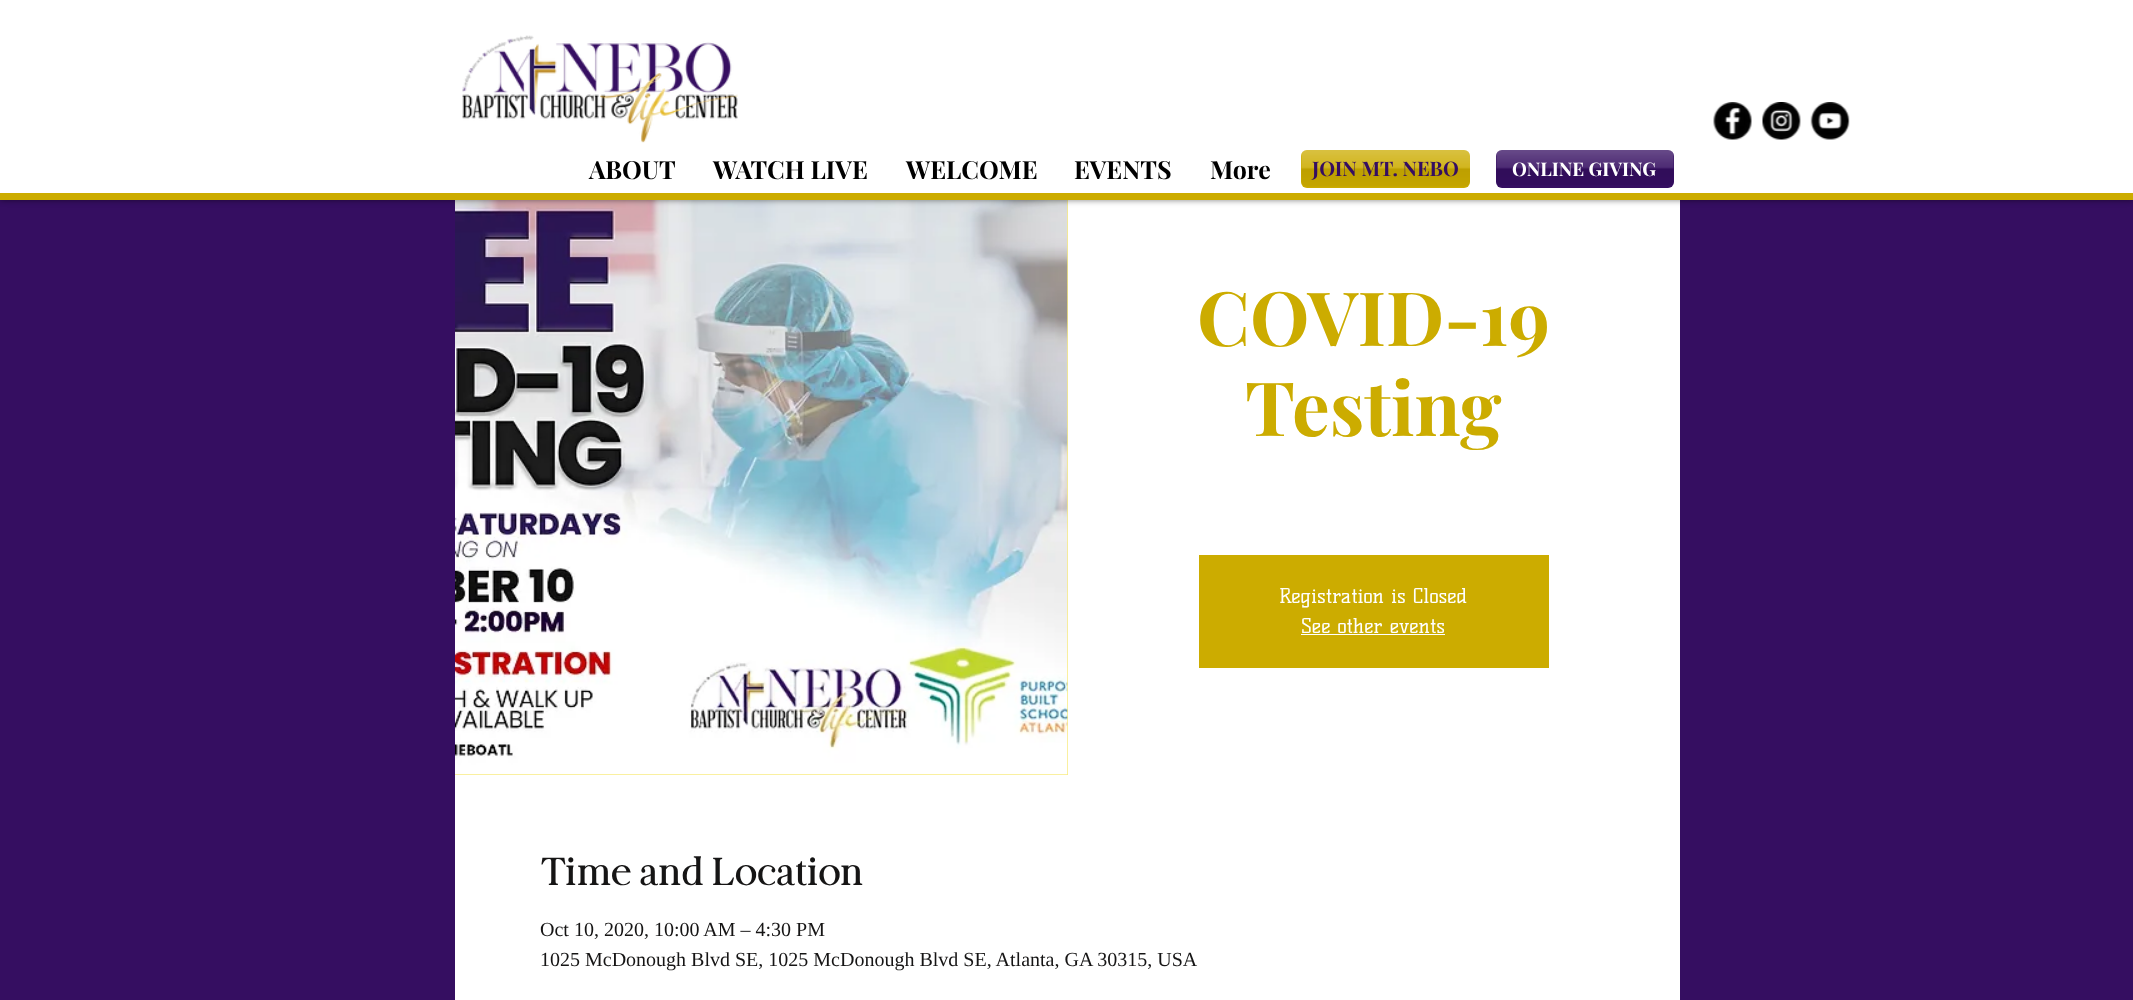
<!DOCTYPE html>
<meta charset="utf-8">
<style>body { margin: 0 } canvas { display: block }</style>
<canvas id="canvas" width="2133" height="1000"></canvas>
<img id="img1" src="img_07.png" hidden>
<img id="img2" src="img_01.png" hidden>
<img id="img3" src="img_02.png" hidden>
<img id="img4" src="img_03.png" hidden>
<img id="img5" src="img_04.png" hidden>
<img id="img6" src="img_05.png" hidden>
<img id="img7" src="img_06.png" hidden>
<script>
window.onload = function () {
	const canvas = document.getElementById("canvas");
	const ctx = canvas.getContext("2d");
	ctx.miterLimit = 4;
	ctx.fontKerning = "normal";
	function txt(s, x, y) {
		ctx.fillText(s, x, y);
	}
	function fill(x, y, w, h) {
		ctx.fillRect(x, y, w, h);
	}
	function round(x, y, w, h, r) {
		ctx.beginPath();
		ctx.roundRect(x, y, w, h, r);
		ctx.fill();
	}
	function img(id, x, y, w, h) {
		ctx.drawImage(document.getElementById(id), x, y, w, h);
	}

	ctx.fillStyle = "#350E61";
	fill(0, 0, 2133, 1000);
	ctx.fillStyle = "#FFFFFF";
	fill(455, 200, 1225, 800);
	ctx.fillStyle = "#F9EB80";
	fill(455, 200, 613, 575);
	img("img1", 455, 200, 613, 575);
	ctx.fillStyle = "rgba(0, 0, 0, 0.5)";
	ctx.filter = "blur(3px)";
	ctx.beginPath();
	ctx.rect(0, 0, 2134, 200);
	ctx.fill();
	ctx.filter = "none";
	ctx.fillStyle = "#FFFFFF";
	fill(0, 0, 2133, 193);
	img("img2", 462, 35, 276, 108);
	img("img3", 1713, 102, 39, 38);
	img("img4", 1762, 102, 39, 38);
	img("img5", 1810, 102, 40, 38);
	ctx.fillStyle = "#CCAC00";
	round(1301, 150, 169, 38, 6);
	img("img6", 1301, 150, 169, 37);
	ctx.fillStyle = "#350E61";
	round(1496, 150, 178, 38, 6);
	img("img7", 1496, 150, 178, 35);
	ctx.fillStyle = "#CCAC00";
	fill(0, 193, 2133, 7);
	fill(1199, 555, 350, 113);
	ctx.fillStyle = "#FFFFFF";
	fill(1301, 634, 144, 1);
	ctx.font = "bold 25px Playfair Display";
	ctx.fillStyle = "#000000";
	txt("ABOUT", 589, 179);
	txt("WATCH LIVE", 713, 179);
	txt("WELCOME", 906, 179);
	txt("EVENTS", 1074, 179);
	txt("More", 1210, 179);
	ctx.font = "bold 20px Playfair Display";
	ctx.fillStyle = "#350E61";
	txt("JOIN MT. NEBO", 1312, 176);
	ctx.font = "bold 18.75px Playfair Display";
	ctx.fillStyle = "#FFFFFF";
	txt("ONLINE GIVING", 1512, 176);
	ctx.font = "bold 75px Playfair Display";
	ctx.fillStyle = "#CCAC00";
	txt("COVID-19", 1197, 346);
	txt("Testing", 1245, 436);
	ctx.font = "20px Kelly Slab";
	ctx.fillStyle = "#FFFFFF";
	txt("Registration is Closed", 1279, 603);
	txt("See other events", 1301, 633);
	ctx.font = "bold 37.5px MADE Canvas";
	ctx.fillStyle = "#161515";
	txt("Time and Location", 540, 885);
	ctx.font = "20px Liberation Serif";
	txt("Oct 10, 2020, 10:00 AM – 4:30 PM", 540, 936);
	txt("1025 McDonough Blvd SE, 1025 McDonough Blvd SE, Atlanta, GA 30315, USA", 540, 966);
};
</script>
